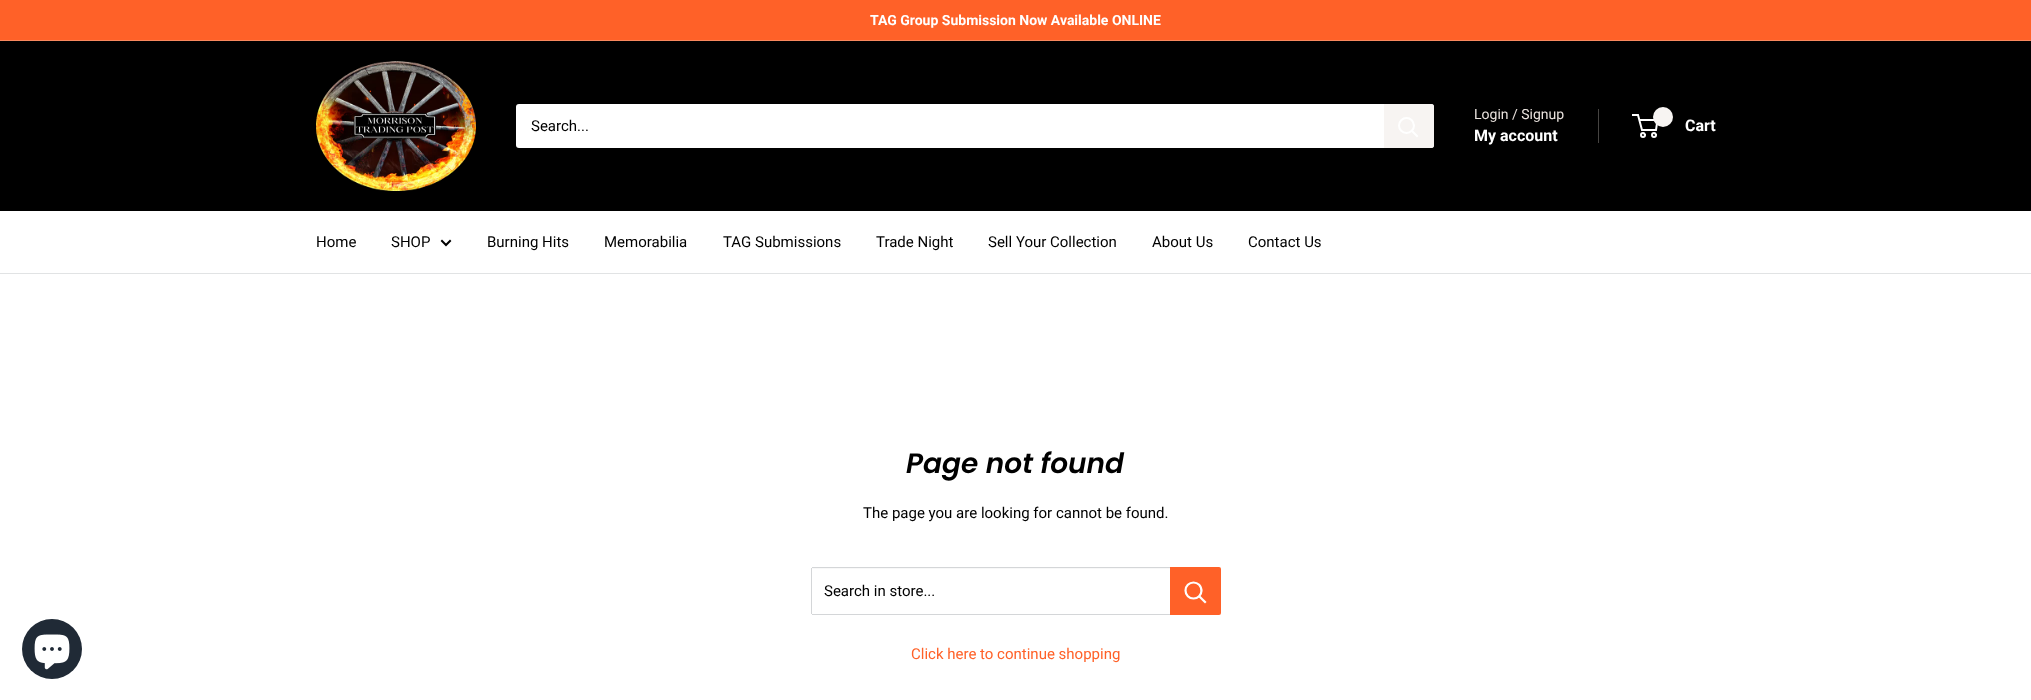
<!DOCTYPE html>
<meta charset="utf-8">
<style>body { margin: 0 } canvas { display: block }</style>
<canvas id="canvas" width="2031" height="700"></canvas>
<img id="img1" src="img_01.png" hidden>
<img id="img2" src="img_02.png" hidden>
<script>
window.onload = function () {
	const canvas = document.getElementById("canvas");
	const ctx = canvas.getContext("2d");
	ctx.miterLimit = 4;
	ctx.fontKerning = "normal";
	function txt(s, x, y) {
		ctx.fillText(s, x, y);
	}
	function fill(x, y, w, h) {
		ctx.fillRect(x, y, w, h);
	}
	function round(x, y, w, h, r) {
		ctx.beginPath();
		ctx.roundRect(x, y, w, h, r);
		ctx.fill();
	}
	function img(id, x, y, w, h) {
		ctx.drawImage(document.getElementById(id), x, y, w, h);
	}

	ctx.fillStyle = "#FFFFFF";
	fill(0, 0, 2031, 700);
	ctx.fillStyle = "#FF6128";
	fill(0, 0, 2031, 40);
	ctx.fillStyle = "#F8885E";
	fill(0, 40, 2031, 1);
	ctx.fillStyle = "#000000";
	fill(0, 41, 2031, 170);
	img("img1", 316, 61, 160, 130);
	ctx.fillStyle = "#FFFFFF";
	round(516, 104, 918, 44, 3);
	ctx.fillStyle = "#F7F4F2";
	ctx.beginPath();
	ctx.roundRect(1384, 104, 50, 44, [0, 3, 3, 0]);
	ctx.fill();
	ctx.beginPath();
	ctx.moveTo(1417, 136);
	ctx.lineTo(1412, 131);
	ctx.strokeStyle = "#FFFFFF";
	ctx.lineWidth = 2;
	ctx.lineCap = "square";
	ctx.stroke();
	ctx.beginPath();
	ctx.arc(1406.5, 125.5, 7.5, 0, Math.PI * 2);
	ctx.stroke();
	ctx.fillStyle = "#464442";
	fill(1598, 109, 1, 34);
	ctx.beginPath();
	ctx.arc(1643, 135, 2, 0, Math.PI * 2);
	ctx.stroke();
	ctx.beginPath();
	ctx.arc(1654, 135, 2, 0, Math.PI * 2);
	ctx.stroke();
	ctx.beginPath();
	ctx.moveTo(1639.5, 120);
	ctx.lineTo(1657.5, 120);
	ctx.lineTo(1656, 130);
	ctx.lineTo(1642, 130);
	ctx.lineTo(1638, 115);
	ctx.lineTo(1632, 115);
	ctx.lineCap = "butt";
	ctx.stroke();
	ctx.fillStyle = "#F7F4F2";
	ctx.beginPath();
	ctx.arc(1663, 117, 10, 0, Math.PI * 2);
	ctx.fill();
	ctx.fillStyle = "#E1E3E4";
	fill(0, 273, 2031, 1);
	ctx.beginPath();
	ctx.moveTo(450, 241);
	ctx.lineTo(446, 245);
	ctx.lineTo(442, 241);
	ctx.strokeStyle = "#000000";
	ctx.lineCap = "square";
	ctx.stroke();
	ctx.fillStyle = "#202A36";
	ctx.beginPath();
	ctx.arc(52, 649, 30, 0, Math.PI * 2);
	ctx.fill();
	img("img2", 34, 634, 36, 36);
	ctx.fillStyle = "#F8F8F8";
	ctx.beginPath();
	ctx.moveTo(813, 569);
	ctx.lineTo(1170, 569);
	ctx.lineTo(1170, 568);
	ctx.lineTo(813, 568);
	ctx.bezierCurveTo(812, 568, 812, 569, 812, 570);
	ctx.bezierCurveTo(812, 569, 812, 569, 813, 569);
	ctx.closePath();
	ctx.fill();
	ctx.fillStyle = "#D4D6D8";
	fill(812, 567, 358, 1);
	fill(812, 614, 358, 1);
	fill(811, 568, 1, 46);
	ctx.fillStyle = "#FF6128";
	ctx.beginPath();
	ctx.roundRect(1170, 567, 51, 48, [0, 2, 2, 0]);
	ctx.fill();
	ctx.beginPath();
	ctx.moveTo(1205, 602);
	ctx.lineTo(1199.5, 596.5);
	ctx.strokeStyle = "#FFFFFF";
	ctx.lineWidth = 2.2;
	ctx.stroke();
	ctx.beginPath();
	ctx.arc(1193.5, 590.5, 8, 0, Math.PI * 2);
	ctx.stroke();
	ctx.font = "bold 14px Roboto";
	ctx.fillStyle = "#FFFFFF";
	txt("TAG Group Submission Now Available ONLINE", 870, 25);
	ctx.font = "15px Roboto";
	ctx.fillStyle = "#000000";
	txt("Search...", 531, 131);
	ctx.font = "14px Roboto";
	ctx.fillStyle = "#E9E2DD";
	txt("Login / Signup", 1474, 119);
	ctx.font = "bold 16px Roboto";
	ctx.fillStyle = "#FFFFFF";
	txt("My account", 1474, 141);
	txt("Cart", 1685, 131);
	ctx.font = "15px Roboto";
	ctx.fillStyle = "#000000";
	txt("Home", 316, 247);
	txt("SHOP", 391, 247);
	txt("Burning Hits", 487, 247);
	txt("Memorabilia", 604, 247);
	txt("TAG Submissions", 723, 247);
	txt("Trade Night", 876, 247);
	txt("Sell Your Collection", 988, 247);
	txt("About Us", 1152, 247);
	txt("Contact Us", 1248, 247);
	ctx.font = "italic 600 28px Poppins";
	txt("Page not found", 906, 473);
	ctx.font = "15px Roboto";
	txt("The page you are looking for cannot be found.", 863, 518);
	txt("Search in store...", 824, 596);
	ctx.fillStyle = "#FF6128";
	txt("Click here to continue shopping", 911, 659);
};
</script>
